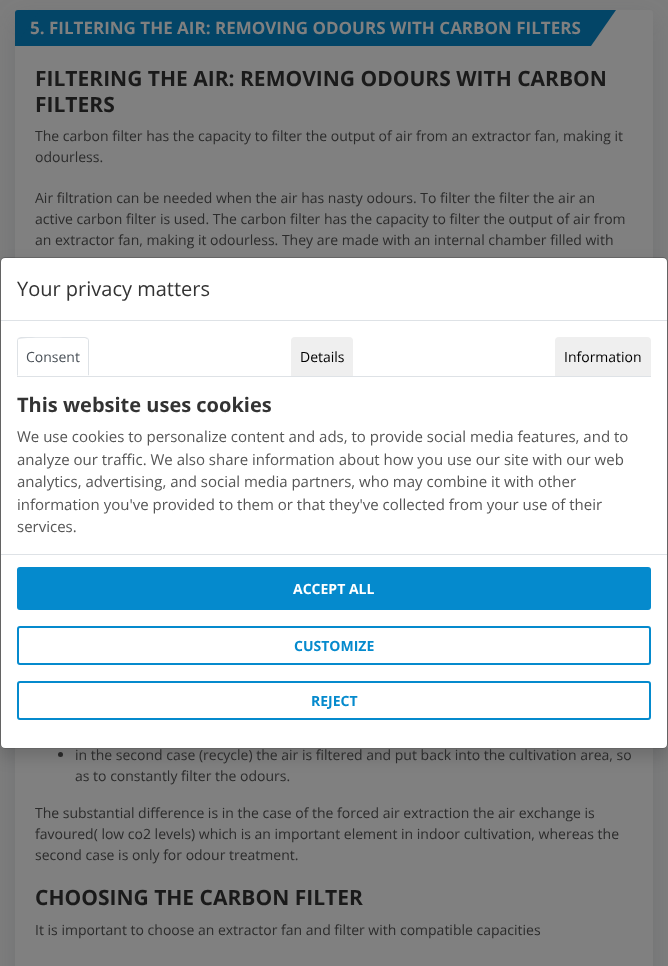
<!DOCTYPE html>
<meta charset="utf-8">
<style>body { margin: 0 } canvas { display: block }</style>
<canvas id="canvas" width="668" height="966"></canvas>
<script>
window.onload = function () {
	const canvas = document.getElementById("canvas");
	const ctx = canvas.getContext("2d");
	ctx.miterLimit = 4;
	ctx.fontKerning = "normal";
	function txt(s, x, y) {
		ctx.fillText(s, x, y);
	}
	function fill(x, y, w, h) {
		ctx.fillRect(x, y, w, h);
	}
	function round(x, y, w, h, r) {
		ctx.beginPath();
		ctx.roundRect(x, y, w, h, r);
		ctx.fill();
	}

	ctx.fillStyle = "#7D7D7D";
	fill(0, 0, 668, 966);
	ctx.fillStyle = "rgba(75, 79, 83, 0.2)";
	ctx.filter = "blur(12px)";
	ctx.beginPath();
	ctx.roundRect(15, 18, 638, 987, 3);
	ctx.fill();
	ctx.filter = "none";
	ctx.fillStyle = "#808080";
	round(15, 10, 638, 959, 3);
	ctx.fillStyle = "#034567";
	ctx.beginPath();
	ctx.roundRect(15, 10, 576, 36, [3, 0, 0, 0]);
	ctx.fill();
	ctx.beginPath();
	ctx.moveTo(40, 10);
	ctx.lineTo(616, 10);
	ctx.lineTo(591, 46);
	ctx.lineTo(15, 46);
	ctx.closePath();
	ctx.fill();
	ctx.fillStyle = "#2B2B2B";
	ctx.beginPath();
	ctx.arc(60.5, 754.5, 2.5, 0, Math.PI * 2);
	ctx.fill();
	ctx.save();
	ctx.beginPath();
	ctx.moveTo(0, 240);
	ctx.lineTo(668, 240);
	ctx.lineTo(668, 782);
	ctx.lineTo(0, 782);
	ctx.closePath();
	ctx.moveTo(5, 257);
	ctx.lineTo(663, 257);
	ctx.bezierCurveTo(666, 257, 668, 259, 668, 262);
	ctx.lineTo(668, 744);
	ctx.bezierCurveTo(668, 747, 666, 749, 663, 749);
	ctx.lineTo(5, 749);
	ctx.bezierCurveTo(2, 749, 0, 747, 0, 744);
	ctx.lineTo(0, 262);
	ctx.bezierCurveTo(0, 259, 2, 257, 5, 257);
	ctx.closePath();
	ctx.clip("evenodd");
	ctx.fillStyle = "rgba(0, 0, 0, 0.15)";
	ctx.filter = "blur(8px)";
	ctx.beginPath();
	ctx.roundRect(0, 265, 668, 492, 5);
	ctx.fill();
	ctx.filter = "none";
	ctx.restore();
	ctx.fillStyle = "#FFFFFF";
	round(1, 258, 666, 490, 4);
	ctx.beginPath();
	ctx.roundRect(0.5, 257.5, 667, 491, 4.5);
	ctx.strokeStyle = "rgba(0, 0, 0, 0.2)";
	ctx.stroke();
	ctx.fillStyle = "#DEE2E6";
	fill(1, 320, 666, 1);
	fill(17, 376, 634, 1);
	ctx.beginPath();
	ctx.moveTo(21, 337);
	ctx.lineTo(18, 338);
	ctx.lineTo(19, 339);
	ctx.bezierCurveTo(21, 337, 68, 338, 74, 338);
	ctx.lineTo(85, 338);
	ctx.lineTo(87, 339);
	ctx.lineTo(88, 338);
	ctx.lineTo(85, 337);
	ctx.closePath();
	ctx.fill();
	ctx.beginPath();
	ctx.moveTo(89, 376);
	ctx.lineTo(89, 341);
	ctx.bezierCurveTo(89, 340, 88.5, 339, 88, 338);
	ctx.lineTo(87, 339);
	ctx.bezierCurveTo(88, 339, 88, 340, 88, 341);
	ctx.lineTo(88, 375);
	ctx.closePath();
	ctx.fill();
	ctx.fillStyle = "#FFFFFF";
	ctx.beginPath();
	ctx.moveTo(89, 376);
	ctx.lineTo(88, 375);
	ctx.lineTo(18, 375);
	ctx.lineTo(17, 376);
	ctx.closePath();
	ctx.fill();
	ctx.fillStyle = "#DEE2E6";
	ctx.beginPath();
	ctx.moveTo(17, 376);
	ctx.lineTo(18, 375);
	ctx.lineTo(18, 341);
	ctx.bezierCurveTo(18, 340, 18, 339, 19, 339);
	ctx.lineTo(18, 338);
	ctx.bezierCurveTo(17.5, 339, 17, 340, 17, 341);
	ctx.closePath();
	ctx.fill();
	ctx.fillStyle = "#EFEFEF";
	ctx.beginPath();
	ctx.roundRect(291, 337, 62, 39, [4, 4, 0, 0]);
	ctx.fill();
	ctx.beginPath();
	ctx.roundRect(555, 337, 96, 39, [4, 4, 0, 0]);
	ctx.fill();
	ctx.fillStyle = "#DEE2E6";
	fill(1, 554, 666, 1);
	ctx.fillStyle = "#058ACD";
	round(17, 567, 634, 43, 3);
	ctx.beginPath();
	ctx.roundRect(18, 627, 632, 37, 2);
	ctx.strokeStyle = "#058ACD";
	ctx.lineWidth = 2;
	ctx.stroke();
	ctx.beginPath();
	ctx.roundRect(18, 682, 632, 37, 2);
	ctx.stroke();
	ctx.font = "bold 17px Open Sans";
	ctx.fillStyle = "#808080";
	txt("5. FILTERING THE AIR: REMOVING ODOURS WITH CARBON FILTERS", 30, 34);
	ctx.font = "bold 21px Open Sans";
	ctx.fillStyle = "#1A1A1A";
	txt("FILTERING THE AIR: REMOVING ODOURS WITH CARBON", 35, 86);
	txt("FILTERS", 35, 112);
	ctx.font = "14px Open Sans";
	ctx.fillStyle = "#2B2B2B";
	txt("The carbon filter has the capacity to filter the output of air from an extractor fan, making it", 35, 141);
	txt("odourless.", 35, 162);
	txt("Air filtration can be needed when the air has nasty odours. To filter the filter the air an", 35, 203);
	txt("active carbon filter is used. The carbon filter has the capacity to filter the output of air from", 35, 224);
	txt("an extractor fan, making it odourless. They are made with an internal chamber filled with", 35, 245);
	txt("in the second case (recycle) the air is filtered and put back into the cultivation area, so", 75, 760);
	txt("as to constantly filter the odours.", 75, 781);
	txt("The substantial difference is in the case of the forced air extraction the air exchange is", 35, 818);
	txt("favoured( low co2 levels) which is an important element in indoor cultivation, whereas the", 35, 839);
	txt("second case is only for odour treatment.", 35, 860);
	ctx.font = "bold 21px Open Sans";
	ctx.fillStyle = "#1A1A1A";
	txt("CHOOSING THE CARBON FILTER", 35, 905);
	ctx.font = "14px Open Sans";
	ctx.fillStyle = "#2B2B2B";
	txt("It is important to choose an extractor fan and filter with compatible capacities", 35, 935);
	ctx.font = "20px Open Sans";
	ctx.fillStyle = "#333333";
	txt("Your privacy matters", 17, 296);
	ctx.font = "14px Open Sans";
	ctx.fillStyle = "#495057";
	txt("Consent", 26, 362);
	ctx.fillStyle = "#000000";
	txt("Details", 300, 362);
	txt("Information", 564, 362);
	ctx.font = "bold 20px Open Sans";
	ctx.fillStyle = "#333333";
	txt("This website uses cookies", 17, 412);
	ctx.font = "15px Open Sans";
	ctx.fillStyle = "#555555";
	txt("We use cookies to personalize content and ads, to provide social media features, and to", 17, 442);
	txt("analyze our traffic. We also share information about how you use our site with our web", 17, 465);
	txt("analytics, advertising, and social media partners, who may combine it with other", 17, 487);
	txt("information you've provided to them or that they've collected from your use of their", 17, 510);
	txt("services.", 17, 532);
	ctx.font = "bold 14px Open Sans";
	ctx.fillStyle = "#FFFFFF";
	txt("ACCEPT ALL", 293, 594);
	ctx.fillStyle = "#058ACD";
	txt("CUSTOMIZE", 294, 651);
	txt("REJECT", 311, 706);
};
</script>
